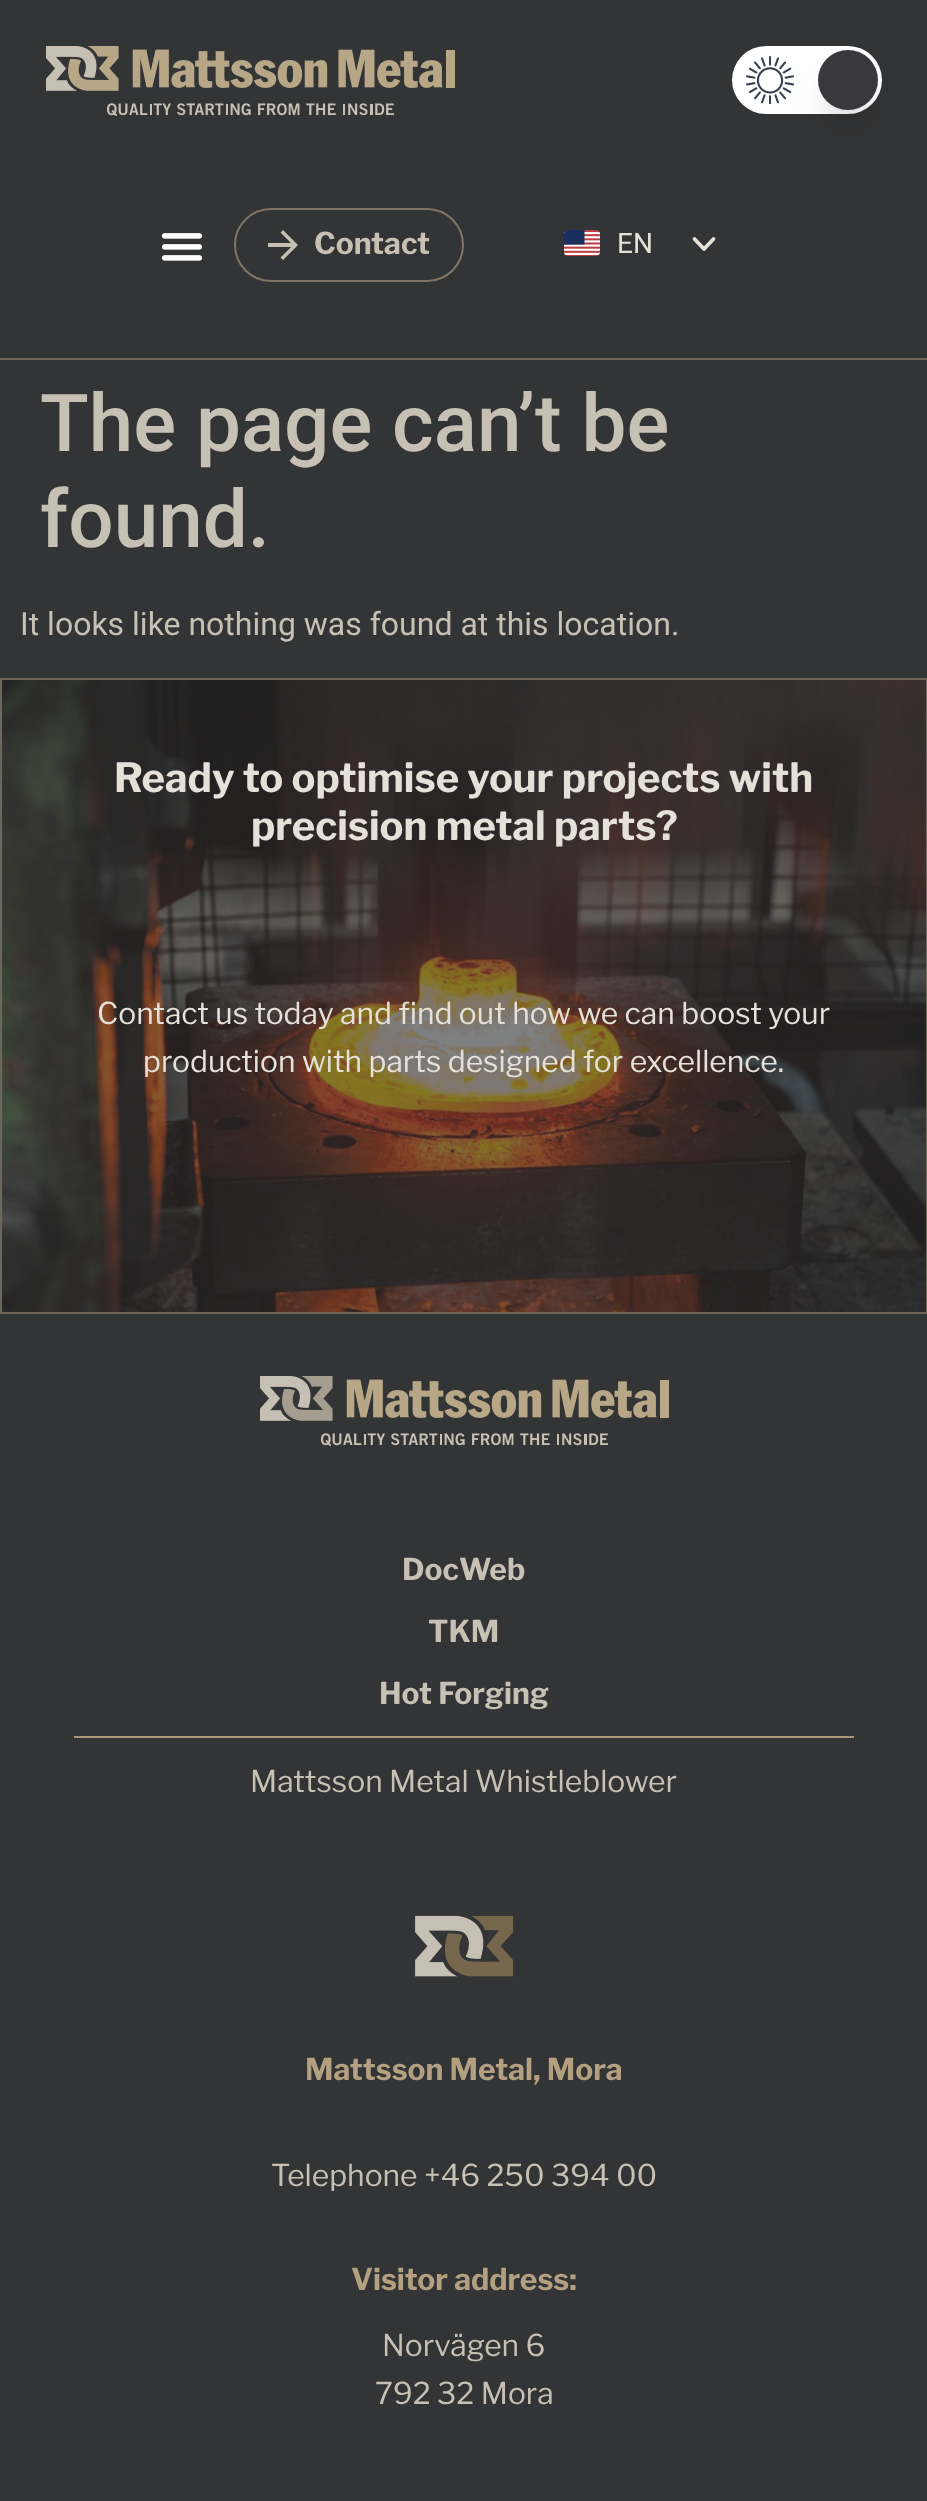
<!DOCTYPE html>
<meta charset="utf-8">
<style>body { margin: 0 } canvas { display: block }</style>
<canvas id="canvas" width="927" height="2501"></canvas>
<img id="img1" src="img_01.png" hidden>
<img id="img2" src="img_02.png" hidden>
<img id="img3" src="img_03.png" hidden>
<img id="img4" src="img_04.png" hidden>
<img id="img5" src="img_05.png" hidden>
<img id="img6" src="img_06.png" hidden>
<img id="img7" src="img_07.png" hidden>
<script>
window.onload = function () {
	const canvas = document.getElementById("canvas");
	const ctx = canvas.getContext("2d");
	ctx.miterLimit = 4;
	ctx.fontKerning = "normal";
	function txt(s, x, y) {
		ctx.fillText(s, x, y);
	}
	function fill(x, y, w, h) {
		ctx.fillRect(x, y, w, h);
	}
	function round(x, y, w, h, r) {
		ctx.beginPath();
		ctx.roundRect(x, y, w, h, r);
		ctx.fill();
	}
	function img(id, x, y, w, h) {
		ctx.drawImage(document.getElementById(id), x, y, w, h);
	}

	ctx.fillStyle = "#333435";
	fill(0, 0, 927, 2501);
	ctx.fillStyle = "#6E675B";
	fill(0, 358, 927, 2);
	img("img1", 46, 46, 409, 70);
	ctx.fillStyle = "#FFFFFF";
	round(732, 46, 150, 68, 34);
	img("img2", 746, 56, 48, 48);
	ctx.fillStyle = "rgba(0, 0, 0, 0.1)";
	ctx.filter = "blur(6px)";
	ctx.beginPath();
	ctx.roundRect(826, 66, 44, 44, 22);
	ctx.fill();
	ctx.filter = "none";
	ctx.filter = "blur(15px)";
	ctx.beginPath();
	ctx.roundRect(824, 76, 48, 48, 24);
	ctx.fill();
	ctx.filter = "none";
	ctx.fillStyle = "#39393D";
	ctx.beginPath();
	ctx.arc(848, 80, 30, 0, Math.PI * 2);
	ctx.fill();
	img("img3", 161, 233, 42, 28);
	ctx.beginPath();
	ctx.roundRect(235, 209, 228, 72, 36);
	ctx.strokeStyle = "#7F7668";
	ctx.lineWidth = 2;
	ctx.stroke();
	ctx.fillStyle = "#C6BFB4";
	ctx.beginPath();
	ctx.moveTo(291, 247);
	ctx.lineTo(268, 247);
	ctx.lineTo(268, 243);
	ctx.lineTo(291, 243);
	ctx.lineTo(280.5, 232.5);
	ctx.lineTo(283, 230);
	ctx.lineTo(298, 245);
	ctx.lineTo(283, 260);
	ctx.lineTo(280.5, 257.5);
	ctx.closePath();
	ctx.fill();
	ctx.beginPath();
	ctx.roundRect(531, 189, 214, 108, 9);
	ctx.strokeStyle = "#303438";
	ctx.stroke();
	img("img4", 564, 230, 36, 26);
	ctx.beginPath();
	ctx.moveTo(694.5, 239);
	ctx.lineTo(704, 249);
	ctx.lineTo(713.5, 239);
	ctx.strokeStyle = "#E5E0D8";
	ctx.lineWidth = 3.8;
	ctx.lineCap = "round";
	ctx.lineJoin = "round";
	ctx.stroke();
	img("img5", 2, 680, 924, 632);
	ctx.strokeStyle = "#6D665B";
	ctx.lineWidth = 2;
	ctx.lineJoin = "miter";
	ctx.strokeRect(1, 679, 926, 634);
	img("img6", 260, 1376, 409, 70);
	ctx.fillStyle = "#AE9976";
	fill(74, 1736, 780, 2);
	img("img7", 415, 1915, 99, 62);
	ctx.font = "bold 30px Libre Franklin";
	ctx.fillStyle = "#C7C0B5";
	txt("Contact", 314, 254);
	ctx.font = "28px Roboto";
	ctx.fillStyle = "#E5E0D8";
	txt("EN", 617, 253);
	ctx.font = "500 80px Roboto";
	ctx.fillStyle = "#C7C0B5";
	txt("The page can’t be", 40, 451);
	txt("found.", 40, 547);
	ctx.font = "32px Roboto";
	txt("It looks like nothing was found at this location.", 20, 635);
	ctx.font = "bold 40px Libre Franklin";
	ctx.fillStyle = "#E5E0D8";
	txt("Ready to optimise your projects with", 114, 792);
	txt("precision metal parts?", 251, 840);
	ctx.font = "30px Libre Franklin";
	txt("Contact us today and find out how we can boost your", 97, 1024);
	txt("production with parts designed for excellence.", 143, 1072);
	ctx.font = "bold 30px Libre Franklin";
	ctx.fillStyle = "#C7C0B5";
	txt("DocWeb", 402, 1580);
	txt("TKM", 428, 1642);
	txt("Hot Forging", 379, 1704);
	ctx.font = "30px Libre Franklin";
	txt("Mattsson Metal Whistleblower", 250, 1792);
	ctx.font = "bold 30px Libre Franklin";
	ctx.fillStyle = "#B2A081";
	txt("Mattsson Metal, Mora", 305, 2080);
	ctx.font = "30px Libre Franklin";
	ctx.fillStyle = "#C7C0B5";
	txt("Telephone +46 250 394 00", 271, 2186);
	ctx.font = "bold 30px Libre Franklin";
	ctx.fillStyle = "#B2A081";
	txt("Visitor address:", 351, 2290);
	ctx.font = "30px Libre Franklin";
	ctx.fillStyle = "#C7C0B5";
	txt("Norvägen 6", 382, 2356);
	txt("792 32 Mora", 375, 2404);
};
</script>
